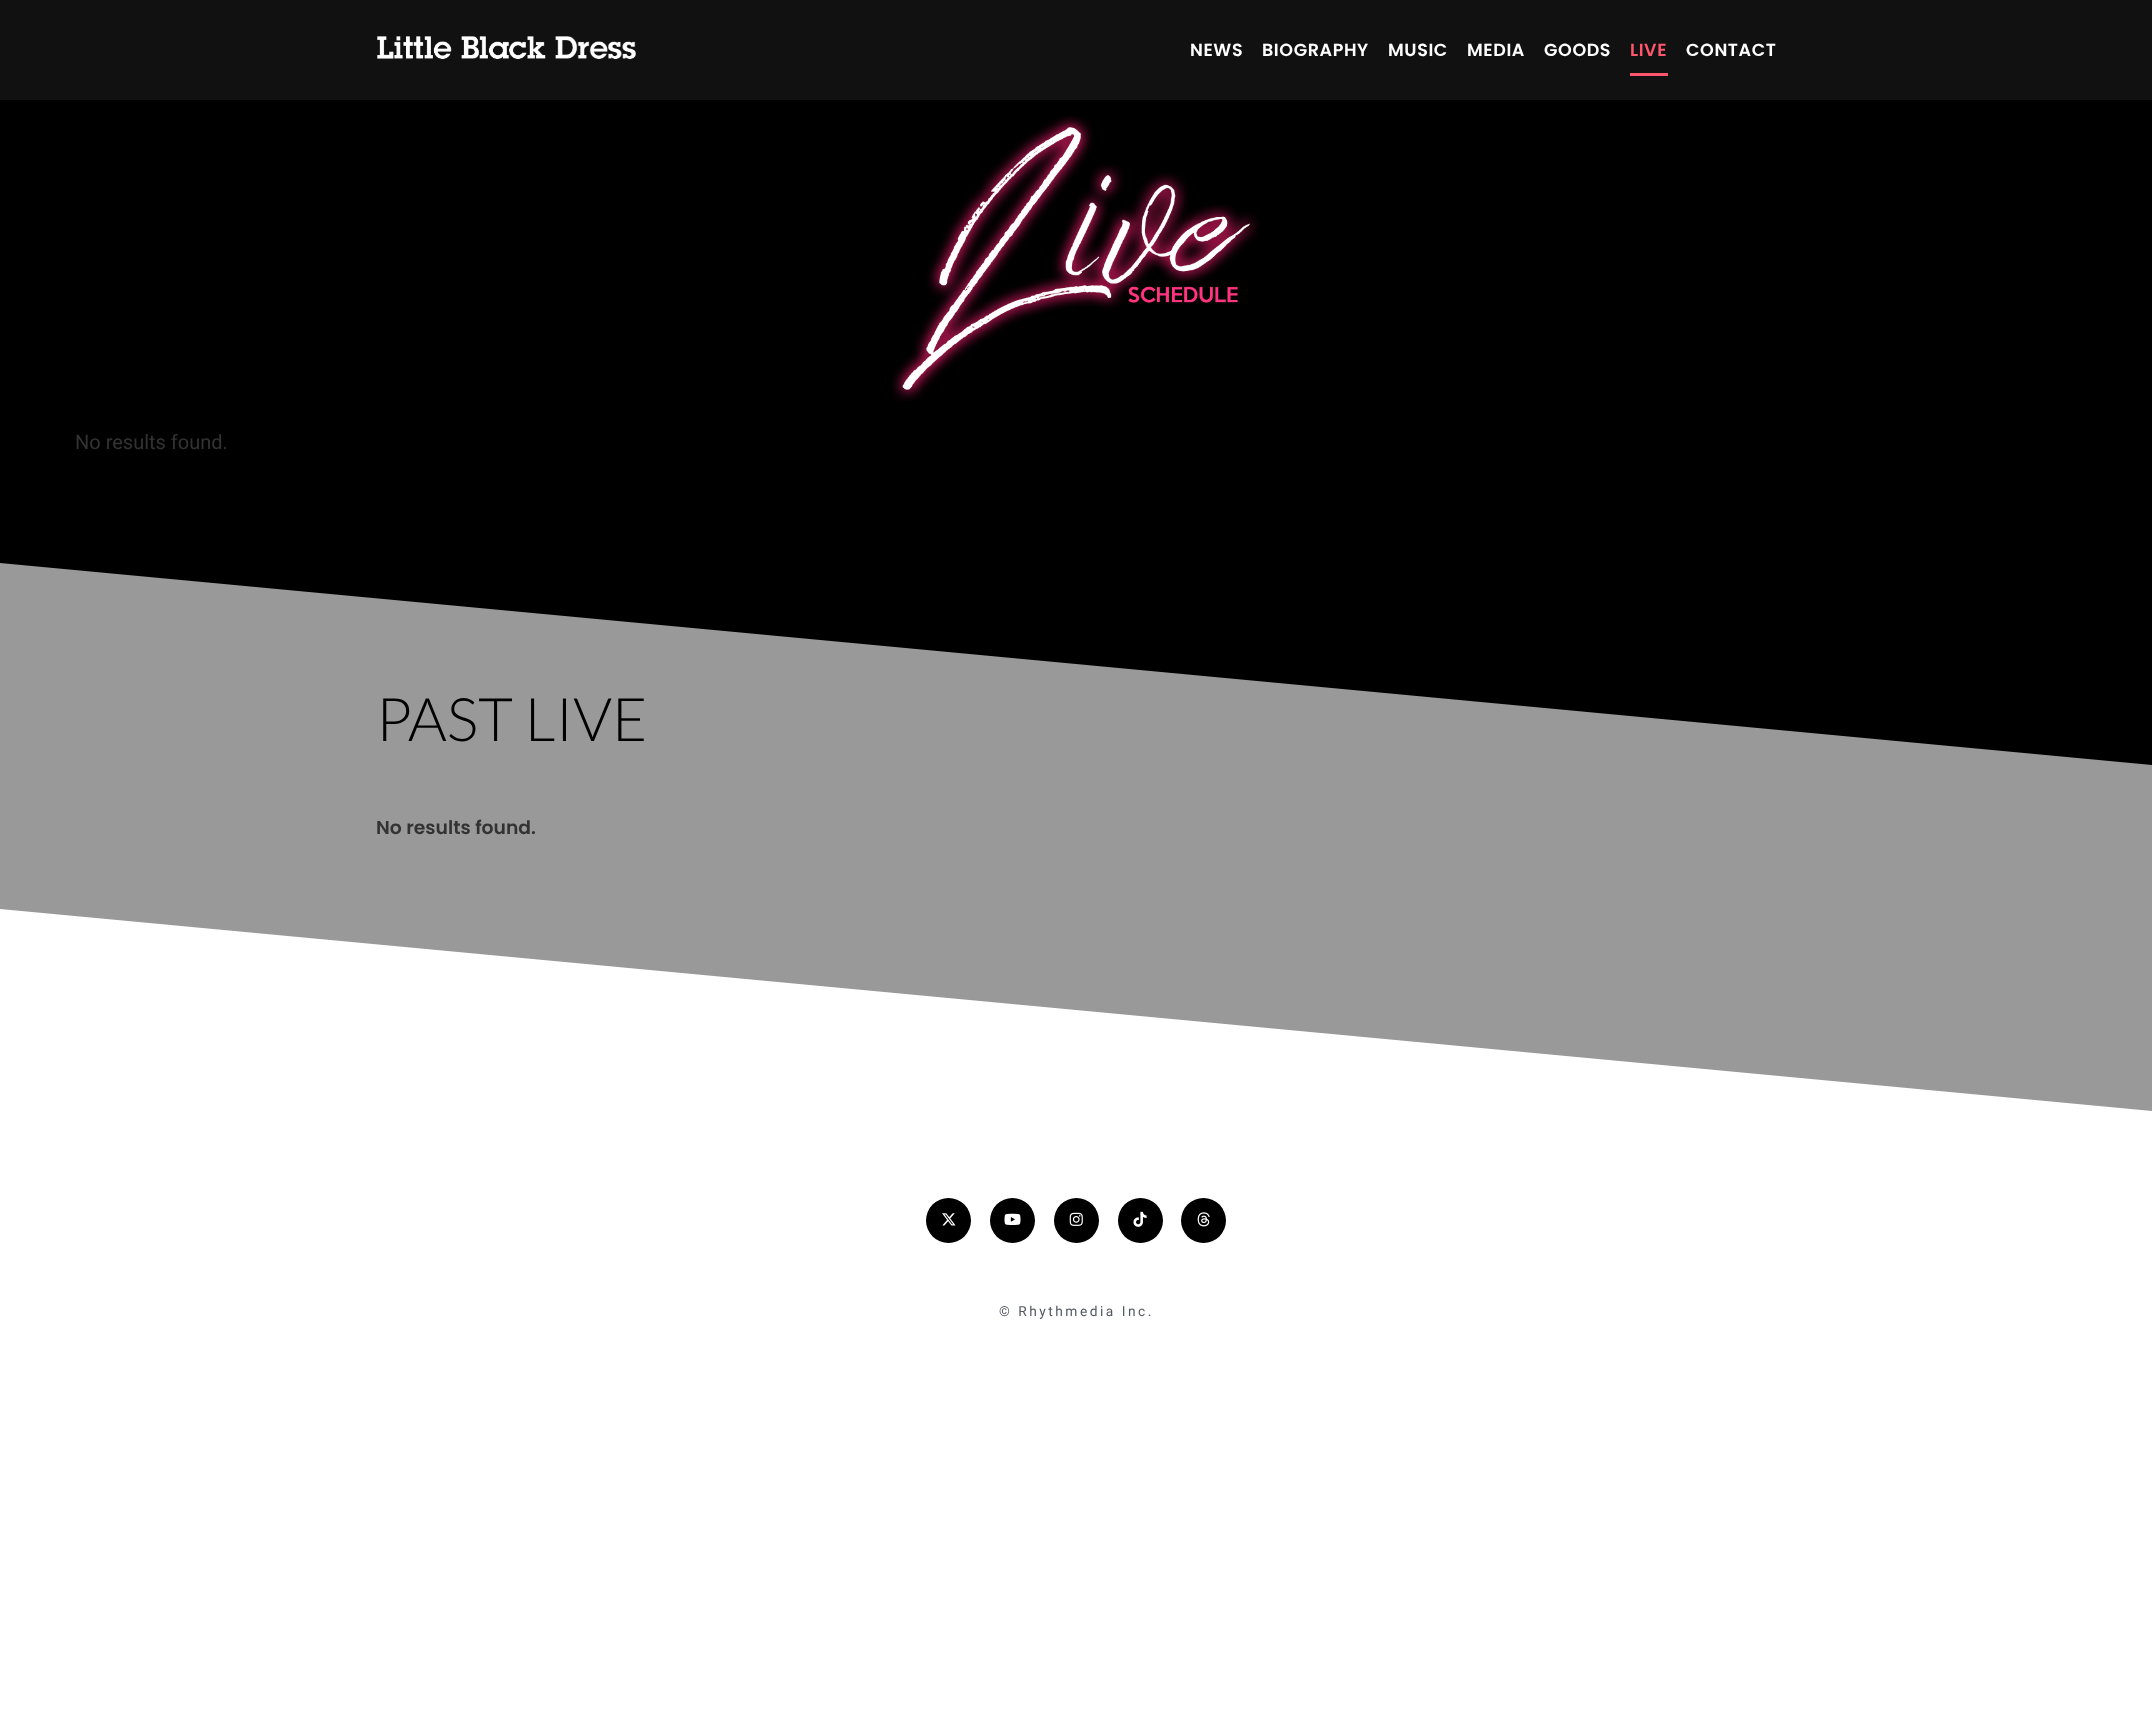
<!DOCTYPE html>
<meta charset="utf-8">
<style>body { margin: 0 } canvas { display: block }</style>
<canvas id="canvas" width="2152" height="1723"></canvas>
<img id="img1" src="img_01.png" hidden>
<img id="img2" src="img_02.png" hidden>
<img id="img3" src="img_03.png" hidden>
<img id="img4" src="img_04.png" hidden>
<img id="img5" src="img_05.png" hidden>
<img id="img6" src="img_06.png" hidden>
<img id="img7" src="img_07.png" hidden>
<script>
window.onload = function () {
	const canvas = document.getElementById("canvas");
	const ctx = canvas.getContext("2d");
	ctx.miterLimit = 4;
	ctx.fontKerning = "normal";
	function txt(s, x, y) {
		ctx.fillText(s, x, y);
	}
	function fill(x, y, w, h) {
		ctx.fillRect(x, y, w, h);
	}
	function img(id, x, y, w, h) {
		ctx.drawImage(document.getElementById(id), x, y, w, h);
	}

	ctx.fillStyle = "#FFFFFF";
	fill(0, 0, 2152, 1723);
	ctx.fillStyle = "#000000";
	fill(0, 100, 2152, 304);
	ctx.fillStyle = "#111111";
	fill(0, 0, 2152, 100);
	img("img1", 377, 36, 259, 24);
	ctx.fillStyle = "#FF566E";
	fill(1630, 73, 38, 3);
	ctx.fillStyle = "#000000";
	ctx.beginPath();
	ctx.moveTo(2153, 404);
	ctx.lineTo(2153, 417);
	ctx.lineTo(-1, 417);
	ctx.lineTo(-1, 202);
	ctx.closePath();
	ctx.fill();
	img("img2", 892, 116, 367, 285);
	fill(0, 417, 2152, 133);
	ctx.fillStyle = "#999999";
	fill(0, 563, 2152, 548);
	ctx.fillStyle = "#000000";
	ctx.beginPath();
	ctx.moveTo(-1, 563);
	ctx.lineTo(-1, 550);
	ctx.lineTo(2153, 550);
	ctx.lineTo(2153, 765);
	ctx.closePath();
	ctx.fill();
	ctx.fillStyle = "#FFFFFF";
	ctx.beginPath();
	ctx.moveTo(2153, 1111);
	ctx.lineTo(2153, 1124);
	ctx.lineTo(-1, 1124);
	ctx.lineTo(-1, 909);
	ctx.closePath();
	ctx.fill();
	ctx.fillStyle = "#000000";
	ctx.beginPath();
	ctx.arc(948.5, 1220.5, 22.5, 0, Math.PI * 2);
	ctx.fill();
	img("img3", 942, 1213, 14, 13);
	ctx.beginPath();
	ctx.arc(1012.5, 1220.5, 22.5, 0, Math.PI * 2);
	ctx.fill();
	img("img4", 1004, 1213, 17, 12);
	ctx.beginPath();
	ctx.arc(1076.5, 1220.5, 22.5, 0, Math.PI * 2);
	ctx.fill();
	img("img5", 1069, 1212, 14, 14);
	ctx.beginPath();
	ctx.arc(1140.5, 1220.5, 22.5, 0, Math.PI * 2);
	ctx.fill();
	img("img6", 1133, 1211, 14, 16);
	ctx.beginPath();
	ctx.arc(1203.5, 1220.5, 22.5, 0, Math.PI * 2);
	ctx.fill();
	img("img7", 1197, 1212, 13, 15);
	ctx.letterSpacing = "0.6px";
	ctx.font = "600 17.5px Poppins";
	ctx.fillStyle = "#FFFFFF";
	txt("NEWS", 1190, 56);
	txt("BIOGRAPHY", 1262, 56);
	txt("MUSIC", 1388, 56);
	txt("MEDIA", 1467, 56);
	txt("GOODS", 1544, 56);
	ctx.fillStyle = "#FF566E";
	txt("LIVE", 1630, 56);
	ctx.fillStyle = "#FFFFFF";
	txt("CONTACT", 1686, 56);
	ctx.letterSpacing = "0px";
	ctx.font = "20px Roboto";
	ctx.fillStyle = "#333333";
	txt("No results found.", 75, 449);
	ctx.font = "300 60px Lato";
	ctx.fillStyle = "#000000";
	txt("PAST LIVE", 376, 741);
	ctx.font = "600 18.75px Poppins";
	ctx.fillStyle = "#333333";
	txt("No results found.", 376, 834);
	ctx.letterSpacing = "2.5px";
	ctx.font = "13.75px Roboto";
	ctx.fillStyle = "#54595F";
	txt("© Rhythmedia Inc.", 999, 1316);
};
</script>
